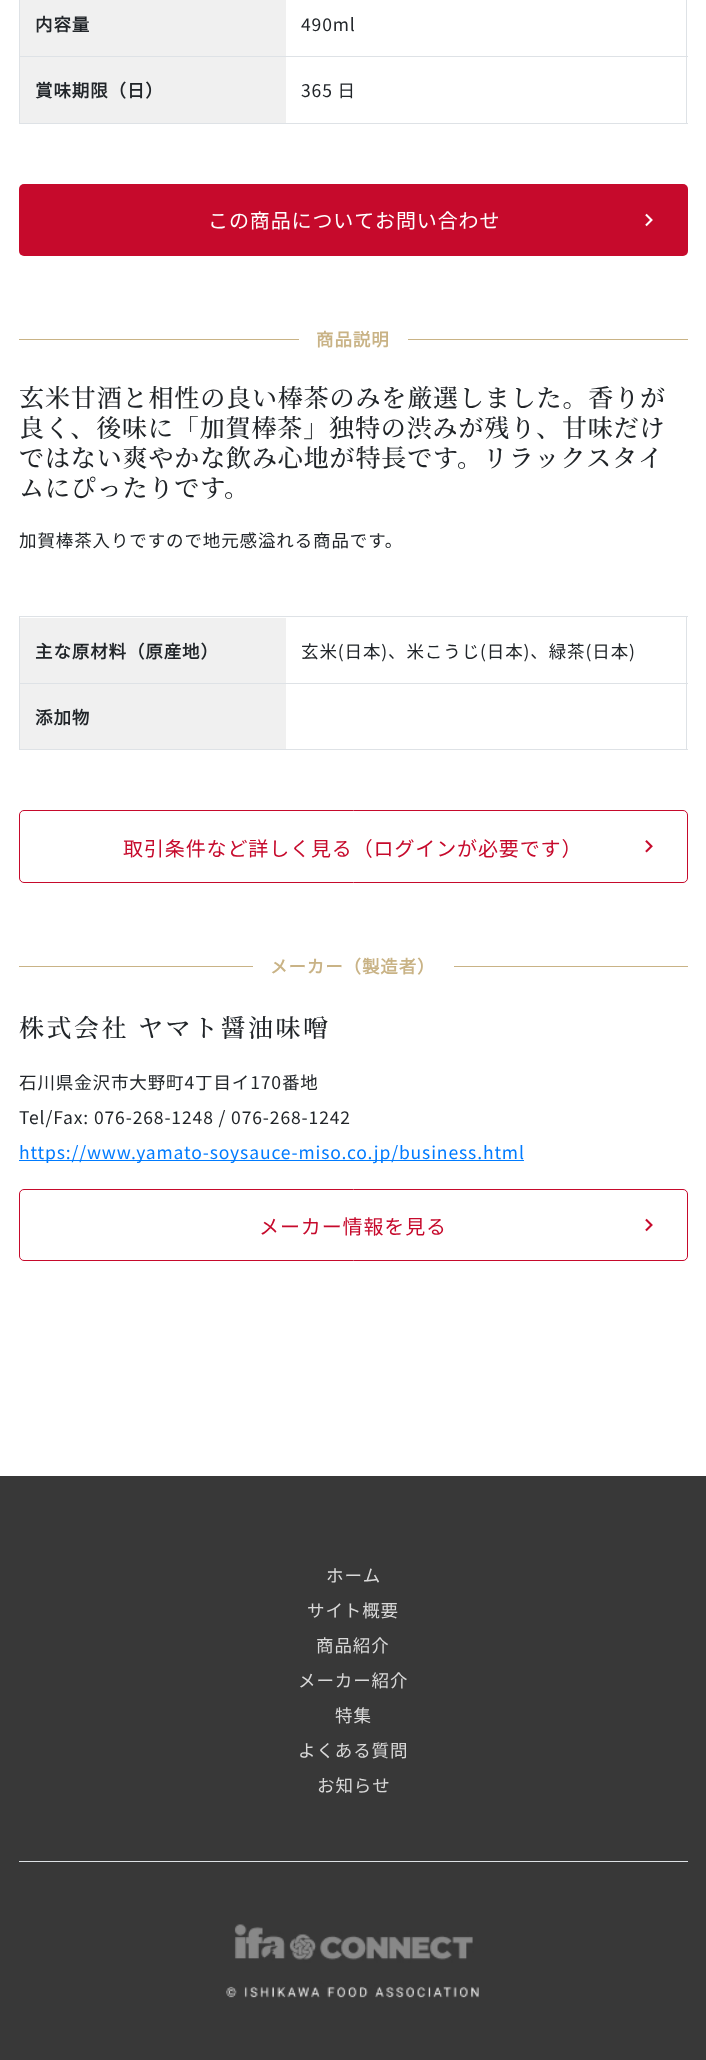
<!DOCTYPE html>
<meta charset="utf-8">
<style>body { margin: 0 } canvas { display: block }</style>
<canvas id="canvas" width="706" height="2060"></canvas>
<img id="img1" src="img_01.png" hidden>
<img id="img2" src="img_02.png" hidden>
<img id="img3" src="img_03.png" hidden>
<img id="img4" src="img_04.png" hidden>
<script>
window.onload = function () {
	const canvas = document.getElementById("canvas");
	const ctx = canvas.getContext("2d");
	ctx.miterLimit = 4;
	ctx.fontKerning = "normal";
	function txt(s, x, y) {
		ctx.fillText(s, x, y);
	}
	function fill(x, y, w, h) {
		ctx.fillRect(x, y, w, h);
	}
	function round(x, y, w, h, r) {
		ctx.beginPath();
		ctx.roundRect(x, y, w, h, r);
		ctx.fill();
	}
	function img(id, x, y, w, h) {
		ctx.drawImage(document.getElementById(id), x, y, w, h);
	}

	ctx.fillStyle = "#FFFFFF";
	fill(0, 0, 706, 2060);
	ctx.fillStyle = "#DEE2E6";
	fill(686, 0, 1, 124);
	fill(19, 123, 669, 1);
	fill(19, 0, 1, 124);
	ctx.fillStyle = "#F0F0F0";
	fill(20, 0, 266, 56);
	fill(20, 57, 266, 66);
	ctx.fillStyle = "#DEE2E6";
	fill(19, 56, 669, 1);
	ctx.fillStyle = "#C60A2C";
	round(19, 184, 669, 72, 5);
	img("img1", 645, 213, 8, 14);
	ctx.fillStyle = "#C9B386";
	fill(19, 339, 280, 1);
	fill(408, 339, 280, 1);
	ctx.fillStyle = "#DEE2E6";
	fill(19, 616, 669, 1);
	fill(686, 616, 1, 134);
	fill(19, 749, 669, 1);
	fill(19, 616, 1, 134);
	ctx.fillStyle = "#F0F0F0";
	fill(20, 618, 266, 65);
	ctx.fillStyle = "#DEE2E6";
	fill(19, 683, 669, 1);
	ctx.fillStyle = "#F0F0F0";
	fill(20, 684, 266, 65);
	ctx.beginPath();
	ctx.roundRect(19.5, 810.5, 668, 72, 4.5);
	ctx.strokeStyle = "#C60A2C";
	ctx.stroke();
	img("img2", 645, 840, 8, 13);
	ctx.fillStyle = "#C9B386";
	fill(19, 966, 234, 1);
	fill(454, 966, 234, 1);
	ctx.fillStyle = "#007BFF";
	fill(19, 1160, 505, 1);
	ctx.beginPath();
	ctx.roundRect(19.5, 1189.5, 668, 71, 4.5);
	ctx.stroke();
	img("img3", 645, 1218, 8, 14);
	ctx.fillStyle = "#383838";
	fill(0, 1476, 706, 584);
	ctx.fillStyle = "#DEE2E6";
	fill(19, 1861, 669, 1);
	img("img4", 226, 1924, 253, 74);
	ctx.letterSpacing = "0.88px";
	ctx.font = "bold 17.5px Noto Sans JP";
	ctx.fillStyle = "#212529";
	txt("内容量", 35, 31);
	ctx.font = "100 17.5px Noto Sans JP";
	txt("490ml", 301, 31);
	ctx.font = "bold 17.5px Noto Sans JP";
	txt("賞味期限（日）", 35, 97);
	ctx.font = "100 17.5px Noto Sans JP";
	txt("365 日", 301, 97);
	ctx.font = "100 20px Noto Sans JP";
	ctx.fillStyle = "#FFFFFF";
	txt("この商品についてお問い合わせ", 208, 228);
	ctx.font = "bold 17.5px Noto Sans JP";
	ctx.fillStyle = "#C9B386";
	txt("商品説明", 316, 346);
	ctx.font = "500 25px Noto Serif JP";
	ctx.fillStyle = "#212529";
	txt("玄米甘酒と相性の良い棒茶のみを厳選しました。香りが", 19, 407);
	txt("良く、後味に「加賀棒茶」独特の渋みが残り、甘味だけ", 19, 437);
	txt("ではない爽やかな飲み心地が特長です。リラックスタイ", 19, 467);
	txt("ムにぴったりです。", 19, 497);
	ctx.font = "100 17.5px Noto Sans JP";
	txt("加賀棒茶入りですので地元感溢れる商品です。", 19, 547);
	ctx.font = "bold 17.5px Noto Sans JP";
	txt("主な原材料（原産地）", 35, 658);
	ctx.font = "100 17.5px Noto Sans JP";
	txt("玄米(日本)、米こうじ(日本)、緑茶(日本)", 301, 658);
	ctx.font = "bold 17.5px Noto Sans JP";
	txt("添加物", 35, 724);
	ctx.font = "100 20px Noto Sans JP";
	ctx.fillStyle = "#C60A2C";
	txt("取引条件など詳しく見る（ログインが必要です）", 123, 856);
	ctx.font = "bold 17.5px Noto Sans JP";
	ctx.fillStyle = "#C9B386";
	txt("メーカー（製造者）", 270, 973);
	ctx.letterSpacing = "2.5px";
	ctx.font = "500 25px Noto Serif JP";
	ctx.fillStyle = "#212529";
	txt("株式会社 ヤマト醤油味噌", 19, 1037);
	ctx.letterSpacing = "0.88px";
	ctx.font = "100 17.5px Noto Sans JP";
	txt("石川県金沢市大野町4丁目イ170番地", 19, 1089);
	txt("Tel/Fax: 076-268-1248 / 076-268-1242", 19, 1124);
	ctx.fillStyle = "#007BFF";
	txt("https://www.yamato-soysauce-miso.co.jp/business.html", 19, 1159);
	ctx.font = "100 20px Noto Sans JP";
	ctx.fillStyle = "#C60A2C";
	txt("メーカー情報を見る", 259, 1234);
	ctx.font = "100 17.5px Noto Sans JP";
	ctx.fillStyle = "#D9D9D9";
	txt("ホーム", 326, 1582);
	txt("サイト概要", 307, 1617);
	txt("商品紹介", 316, 1652);
	txt("メーカー紹介", 298, 1687);
	txt("特集", 335, 1722);
	txt("よくある質問", 298, 1757);
	txt("お知らせ", 317, 1792);
};
</script>
